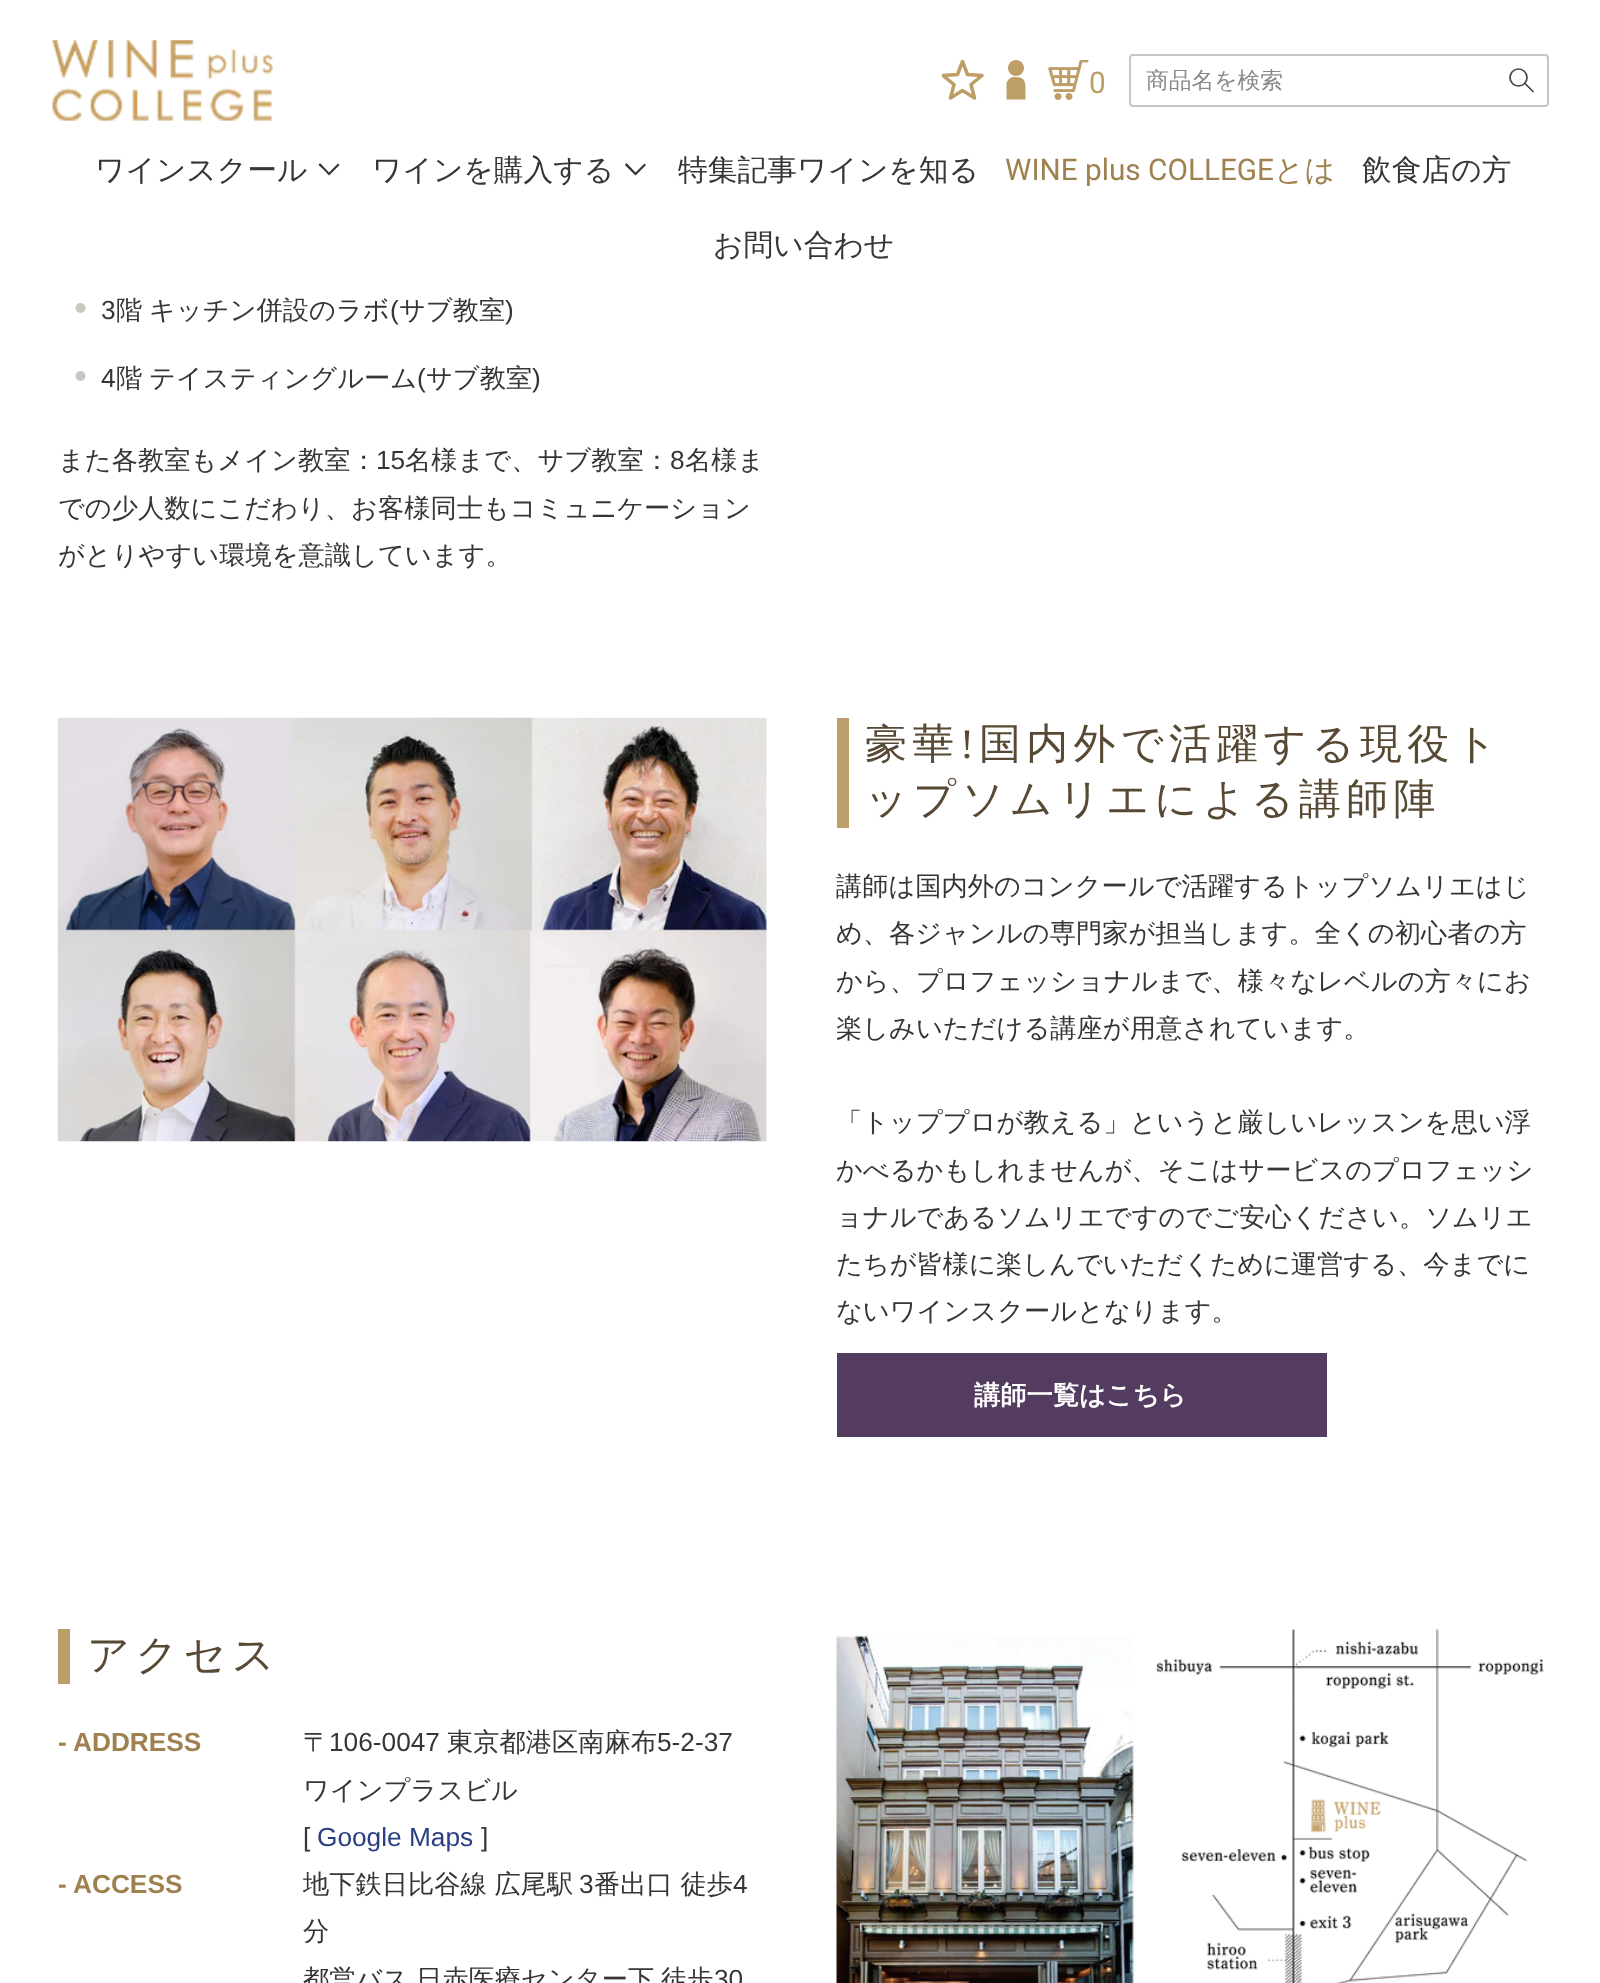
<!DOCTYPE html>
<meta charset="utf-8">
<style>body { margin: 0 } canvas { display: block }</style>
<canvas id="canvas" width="1600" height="1983"></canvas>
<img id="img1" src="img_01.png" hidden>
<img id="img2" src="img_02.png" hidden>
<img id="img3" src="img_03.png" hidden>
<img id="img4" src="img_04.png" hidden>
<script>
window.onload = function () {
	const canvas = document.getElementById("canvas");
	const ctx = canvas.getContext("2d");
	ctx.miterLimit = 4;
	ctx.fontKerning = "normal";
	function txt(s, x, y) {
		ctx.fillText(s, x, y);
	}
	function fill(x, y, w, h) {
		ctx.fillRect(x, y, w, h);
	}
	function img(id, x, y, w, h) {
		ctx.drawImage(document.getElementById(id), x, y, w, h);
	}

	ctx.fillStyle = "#FFFFFF";
	fill(0, 0, 1600, 1983);
	img("img1", 52, 40, 221, 81);
	ctx.save();
	ctx.beginPath();
	ctx.rect(942, 60, 42, 40);
	ctx.clip();
	ctx.beginPath();
	ctx.moveTo(962.5, 61.5);
	ctx.lineTo(957.5, 74.5);
	ctx.lineTo(943, 75.5);
	ctx.lineTo(954, 84.5);
	ctx.lineTo(950.5, 98);
	ctx.lineTo(962.5, 90.5);
	ctx.lineTo(974.5, 98);
	ctx.lineTo(971, 84.5);
	ctx.lineTo(982, 75.5);
	ctx.lineTo(967.5, 74.5);
	ctx.closePath();
	ctx.strokeStyle = "#BD9E66";
	ctx.lineWidth = 3.5;
	ctx.lineCap = "round";
	ctx.lineJoin = "round";
	ctx.stroke();
	ctx.restore();
	ctx.fillStyle = "#BD9E66";
	ctx.beginPath();
	ctx.arc(1016, 68, 8, 0, Math.PI * 2);
	ctx.fill();
	ctx.beginPath();
	ctx.moveTo(1014.5, 77);
	ctx.bezierCurveTo(1024.5, 77, 1025.5, 80.5, 1025.5, 90);
	ctx.lineTo(1025.5, 99.5);
	ctx.lineTo(1006.5, 99.5);
	ctx.lineTo(1006.5, 83.5);
	ctx.bezierCurveTo(1007.5, 79.5, 1010.5, 77, 1014.5, 77);
	ctx.closePath();
	ctx.fill();
	img("img2", 1048, 60, 41, 40);
	ctx.beginPath();
	ctx.roundRect(1130, 55, 418, 51, 3);
	ctx.strokeStyle = "#C7C6C2";
	ctx.lineWidth = 2;
	ctx.stroke();
	ctx.beginPath();
	ctx.arc(1518.5, 77.5, 8.5, 0, Math.PI * 2);
	ctx.strokeStyle = "#444444";
	ctx.lineWidth = 1.7;
	ctx.stroke();
	ctx.beginPath();
	ctx.moveTo(1525.5, 84);
	ctx.lineTo(1533, 91.5);
	ctx.lineCap = "round";
	ctx.stroke();
	ctx.fillStyle = "#333333";
	ctx.beginPath();
	ctx.moveTo(324, 170);
	ctx.lineTo(318.5, 165);
	ctx.lineTo(320, 163);
	ctx.lineTo(329, 172.5);
	ctx.lineTo(338, 163.5);
	ctx.lineTo(339.5, 165);
	ctx.lineTo(329, 175.5);
	ctx.closePath();
	ctx.fill();
	ctx.beginPath();
	ctx.moveTo(630, 170);
	ctx.lineTo(625, 165);
	ctx.lineTo(626.5, 163);
	ctx.lineTo(635.5, 172.5);
	ctx.lineTo(644.5, 163.5);
	ctx.lineTo(646, 165);
	ctx.lineTo(635.5, 175.5);
	ctx.closePath();
	ctx.fill();
	ctx.fillStyle = "#CBC6BE";
	ctx.beginPath();
	ctx.arc(80.5, 308, 5, 0, Math.PI * 2);
	ctx.fill();
	ctx.beginPath();
	ctx.arc(80.5, 376, 5, 0, Math.PI * 2);
	ctx.fill();
	img("img3", 57, 717, 710, 425);
	ctx.fillStyle = "#BC9E6A";
	fill(837, 718, 12, 110);
	ctx.fillStyle = "#533C5F";
	fill(837, 1353, 490, 84);
	ctx.fillStyle = "#BC9E6A";
	fill(58, 1629, 12, 55);
	img("img4", 836, 1629, 708, 354);
	ctx.font = "29.75px Roboto";
	ctx.fillStyle = "#BD9E66";
	txt("0", 1089, 93);
	ctx.font = "500 22.75px WenQuanYi Zen Hei";
	ctx.fillStyle = "#888888";
	txt("商品名を検索", 1146, 88);
	ctx.font = "500 29.75px WenQuanYi Zen Hei";
	ctx.fillStyle = "#363636";
	txt("ワインスクール", 95, 180);
	txt("ワインを購入する", 372, 180);
	txt("特集記事ワインを知る", 678, 180);
	ctx.font = "29.75px Roboto";
	ctx.fillStyle = "#9E814F";
	txt("WINE plus COLLEGE", 1005, 180);
	ctx.font = "500 29.75px WenQuanYi Zen Hei";
	txt("とは", 1274, 180);
	ctx.fillStyle = "#363636";
	txt("飲食店の方", 1362, 180);
	txt("お問い合わせ", 713, 255);
	ctx.font = "26.25px Liberation Sans";
	txt("3", 101, 319);
	ctx.wordSpacing = "-1px";
	ctx.font = "500 26.25px WenQuanYi Zen Hei";
	txt("階 キッチン併設のラボ", 116, 319);
	ctx.wordSpacing = "0px";
	ctx.font = "26.25px Liberation Sans";
	txt("(", 390, 319);
	ctx.font = "500 26.25px WenQuanYi Zen Hei";
	txt("サブ教室", 399, 319);
	ctx.font = "26.25px Liberation Sans";
	txt(")", 505, 319);
	txt("4", 101, 387);
	ctx.wordSpacing = "-1px";
	ctx.font = "500 26.25px WenQuanYi Zen Hei";
	txt("階 テイスティングルーム", 116, 387);
	ctx.wordSpacing = "0px";
	ctx.font = "26.25px Liberation Sans";
	txt("(", 417, 387);
	ctx.font = "500 26.25px WenQuanYi Zen Hei";
	txt("サブ教室", 426, 387);
	ctx.font = "26.25px Liberation Sans";
	txt(")", 532, 387);
	ctx.font = "500 26.25px WenQuanYi Zen Hei";
	txt("また各教室もメイン教室：", 58, 469);
	ctx.font = "26.25px Liberation Sans";
	txt("15", 376, 469);
	ctx.font = "500 26.25px WenQuanYi Zen Hei";
	txt("名様まで、サブ教室：", 405, 469);
	ctx.font = "26.25px Liberation Sans";
	txt("8", 670, 469);
	ctx.font = "500 26.25px WenQuanYi Zen Hei";
	txt("名様ま", 685, 469);
	txt("での少人数にこだわり、お客様同士もコミュニケーション", 58, 517);
	txt("がとりやすい環境を意識しています。", 58, 564);
	ctx.letterSpacing = "5.25px";
	ctx.font = "500 42px WenQuanYi Zen Hei";
	ctx.fillStyle = "#574934";
	txt("豪華", 865, 758);
	ctx.font = "42px Liberation Serif";
	txt("!", 960, 758);
	ctx.font = "500 42px WenQuanYi Zen Hei";
	txt("国内外で活躍する現役ト", 979, 758);
	txt("ップソムリエによる講師陣", 865, 813);
	ctx.letterSpacing = "0px";
	ctx.font = "500 26.25px WenQuanYi Zen Hei";
	ctx.fillStyle = "#363636";
	txt("講師は国内外のコンクールで活躍するトップソムリエはじ", 836, 895);
	txt("め、各ジャンルの専門家が担当します。全くの初心者の方", 836, 942);
	txt("から、プロフェッショナルまで、様々なレベルの方々にお", 836, 990);
	txt("楽しみいただける講座が用意されています。", 836, 1037);
	txt("「トッププロが教える」というと厳しいレッスンを思い浮", 836, 1131);
	txt("かべるかもしれませんが、そこはサービスのプロフェッシ", 836, 1179);
	txt("ョナルであるソムリエですのでご安心ください。ソムリエ", 836, 1226);
	txt("たちが皆様に楽しんでいただくために運営する、今までに", 836, 1273);
	txt("ないワインスクールとなります。", 836, 1320);
	ctx.font = "bold 26.25px WenQuanYi Zen Hei";
	ctx.fillStyle = "#FFFFFF";
	txt("講師一覧はこちら", 974, 1404);
	ctx.letterSpacing = "5.25px";
	ctx.font = "500 42px WenQuanYi Zen Hei";
	ctx.fillStyle = "#574934";
	txt("アクセス", 87, 1669);
	ctx.letterSpacing = "0px";
	ctx.font = "bold 26.25px Liberation Sans";
	ctx.fillStyle = "#9E814F";
	txt("-", 58, 1751);
	txt("ADDRESS", 73, 1751);
	ctx.font = "500 26.25px WenQuanYi Zen Hei";
	ctx.fillStyle = "#363636";
	txt("〒", 303, 1751);
	ctx.font = "26.25px Liberation Sans";
	txt("106-0047", 329, 1751);
	ctx.font = "500 26.25px WenQuanYi Zen Hei";
	txt("東京都港区南麻布", 447, 1751);
	ctx.font = "26.25px Liberation Sans";
	txt("5-2-37", 657, 1751);
	ctx.font = "500 26.25px WenQuanYi Zen Hei";
	txt("ワインプラスビル", 303, 1799);
	ctx.font = "26.25px Liberation Sans";
	txt("[", 303, 1846);
	ctx.fillStyle = "#293E83";
	txt("Google Maps", 317, 1846);
	ctx.fillStyle = "#363636";
	txt("]", 481, 1846);
	ctx.font = "bold 26.25px Liberation Sans";
	ctx.fillStyle = "#9E814F";
	txt("-", 58, 1893);
	txt("ACCESS", 73, 1893);
	ctx.font = "500 26.25px WenQuanYi Zen Hei";
	ctx.fillStyle = "#363636";
	txt("地下鉄日比谷線 広尾駅", 303, 1893);
	ctx.font = "26.25px Liberation Sans";
	txt("3", 579, 1893);
	ctx.font = "500 26.25px WenQuanYi Zen Hei";
	txt("番出口 徒歩", 594, 1893);
	ctx.font = "26.25px Liberation Sans";
	txt("4", 733, 1893);
	ctx.font = "500 26.25px WenQuanYi Zen Hei";
	txt("分", 303, 1940);
	ctx.wordSpacing = "-1px";
	txt("都営バス 日赤医療センター下 徒歩", 303, 1988);
	ctx.wordSpacing = "0px";
	ctx.font = "26.25px Liberation Sans";
	txt("30", 714, 1988);
};
</script>
